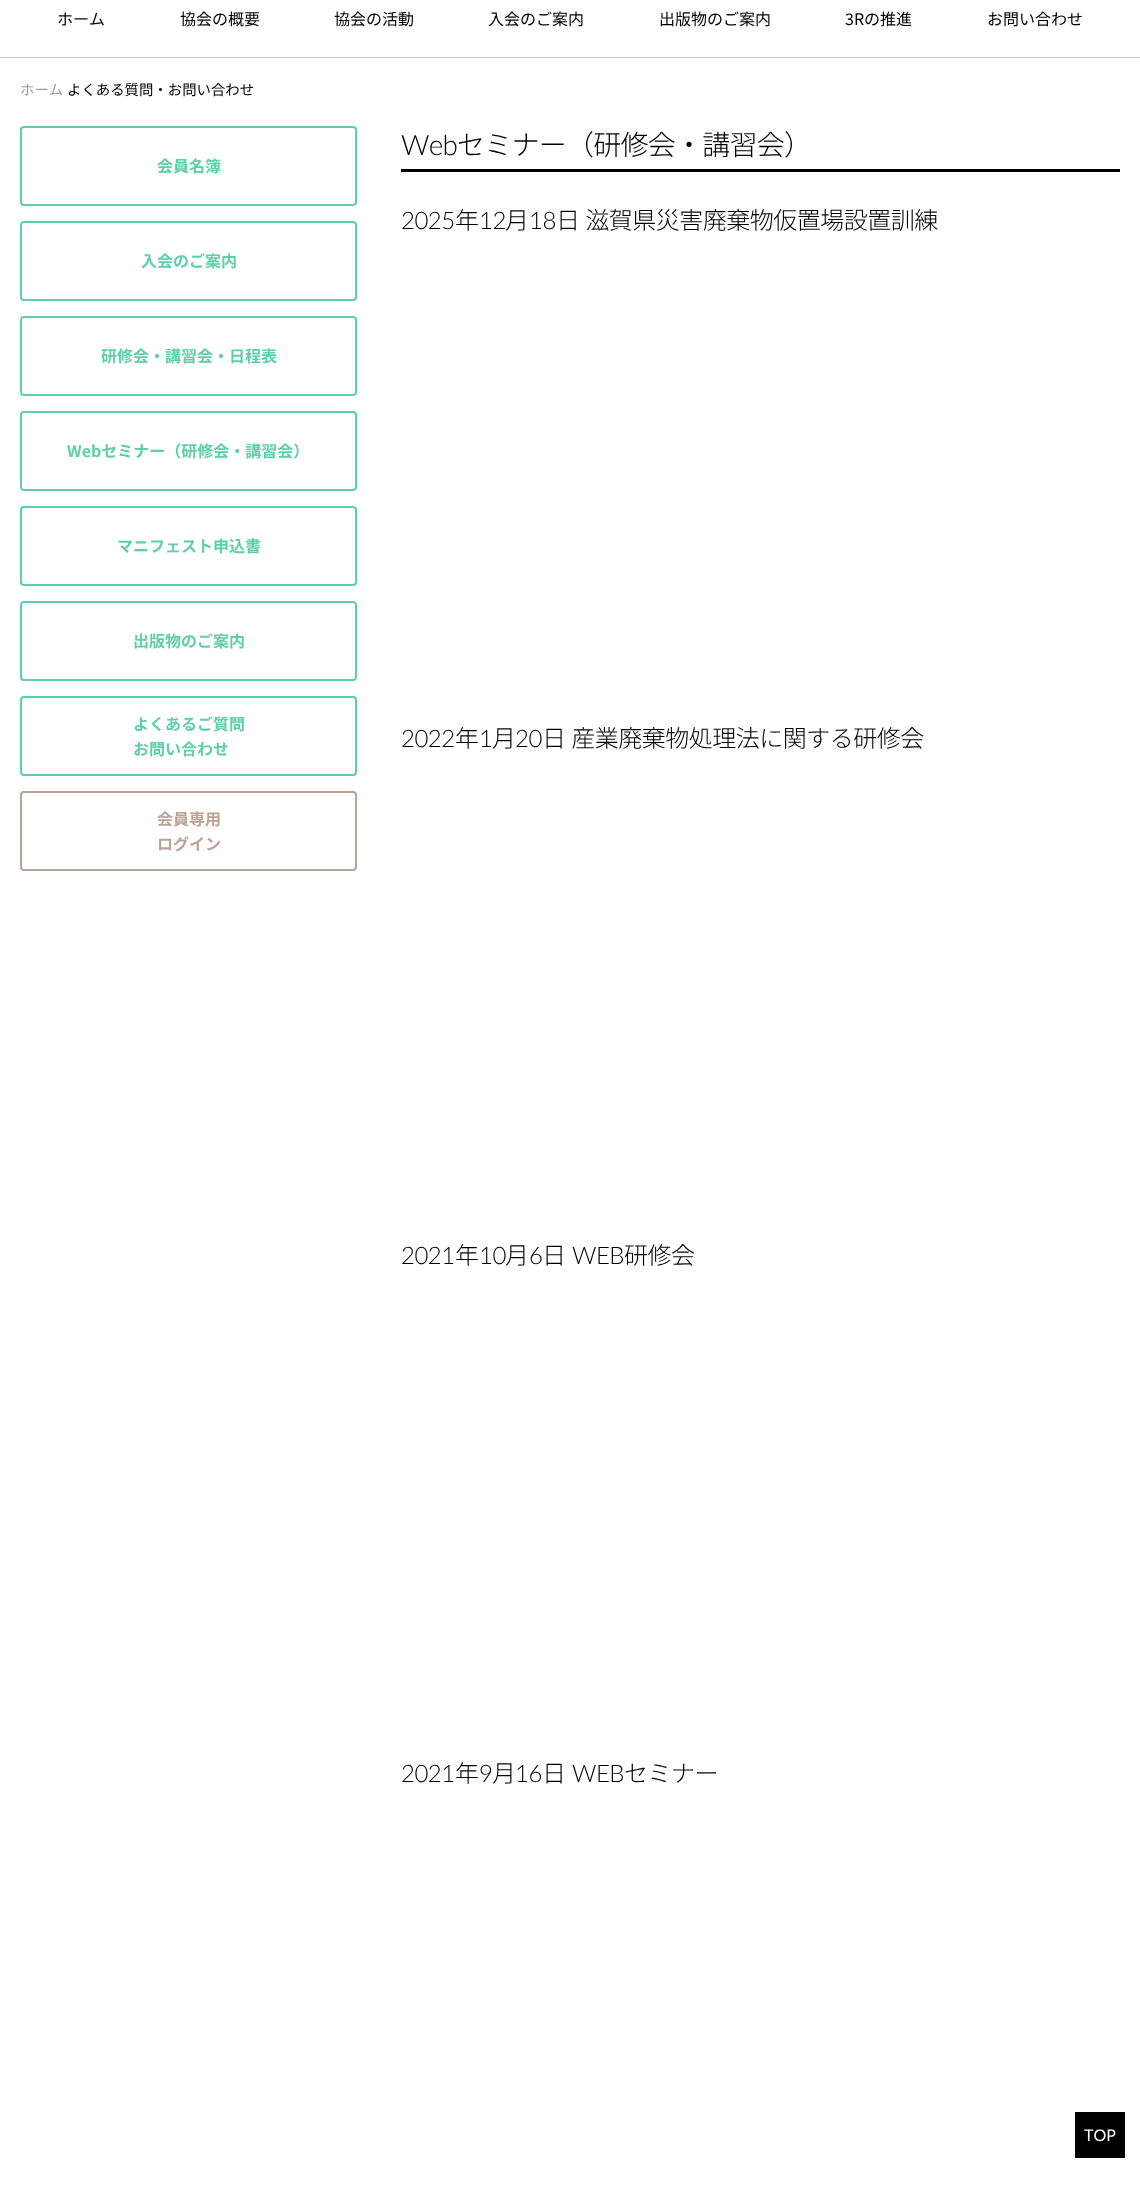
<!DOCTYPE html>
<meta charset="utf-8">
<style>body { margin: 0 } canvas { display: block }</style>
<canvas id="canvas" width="1140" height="2198"></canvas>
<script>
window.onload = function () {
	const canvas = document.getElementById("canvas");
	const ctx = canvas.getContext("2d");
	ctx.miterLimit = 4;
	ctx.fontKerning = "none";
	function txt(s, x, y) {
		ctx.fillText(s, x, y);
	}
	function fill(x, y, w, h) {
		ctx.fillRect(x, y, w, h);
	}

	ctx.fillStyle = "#FFFFFF";
	fill(0, 0, 1140, 2198);
	ctx.fillStyle = "#CCCCCC";
	fill(0, 57, 1140, 1);
	ctx.beginPath();
	ctx.roundRect(21, 127, 335, 78, 3);
	ctx.strokeStyle = "#5ED0A7";
	ctx.lineWidth = 2;
	ctx.stroke();
	ctx.beginPath();
	ctx.roundRect(21, 222, 335, 78, 3);
	ctx.stroke();
	ctx.beginPath();
	ctx.roundRect(21, 317, 335, 78, 3);
	ctx.stroke();
	ctx.beginPath();
	ctx.roundRect(21, 412, 335, 78, 3);
	ctx.stroke();
	ctx.beginPath();
	ctx.roundRect(21, 507, 335, 78, 3);
	ctx.stroke();
	ctx.beginPath();
	ctx.roundRect(21, 602, 335, 78, 3);
	ctx.stroke();
	ctx.beginPath();
	ctx.roundRect(21, 697, 335, 78, 3);
	ctx.stroke();
	ctx.beginPath();
	ctx.roundRect(21, 792, 335, 78, 3);
	ctx.strokeStyle = "#BAA395";
	ctx.stroke();
	ctx.fillStyle = "#000000";
	fill(401, 169, 719, 3);
	fill(1075, 2112, 50, 46);
	ctx.font = "16px Noto Sans JP";
	txt("ホーム", 57, 25);
	txt("協会の概要", 180, 25);
	txt("協会の活動", 334, 25);
	txt("入会のご案内", 488, 25);
	txt("出版物のご案内", 659, 25);
	txt("3Rの推進", 845, 25);
	txt("お問い合わせ", 987, 25);
	ctx.font = "14.4px Noto Sans JP";
	ctx.fillStyle = "#959FA5";
	txt("ホーム", 20, 95);
	ctx.fillStyle = "#000000";
	txt("よくある質問・お問い合わせ", 67, 95);
	ctx.font = "bold 16px Noto Sans JP";
	ctx.fillStyle = "#5ED0A7";
	txt("会員名簿", 157, 172);
	txt("入会のご案内", 141, 267);
	txt("研修会・講習会・日程表", 101, 362);
	txt("Webセミナー（研修会・講習会）", 67, 457);
	txt("マニフェスト申込書", 117, 552);
	txt("出版物のご案内", 133, 647);
	txt("よくあるご質問", 133, 730);
	txt("お問い合わせ", 133, 755);
	ctx.fillStyle = "#BAA395";
	txt("会員専用", 157, 825);
	txt("ログイン", 157, 850);
	ctx.letterSpacing = "-0.75px";
	ctx.font = "300 28px Lato";
	ctx.fillStyle = "#000000";
	txt("Web", 401, 155);
	ctx.font = "300 28px Noto Sans JP";
	txt("セミナー（研修会・講習会）", 457, 155);
	ctx.letterSpacing = "-0.5px";
	ctx.font = "300 24px Lato";
	txt("2025", 401, 229);
	ctx.font = "300 24px Noto Sans JP";
	txt("年", 455, 229);
	ctx.font = "300 24px Lato";
	txt("12", 479, 229);
	ctx.font = "300 24px Noto Sans JP";
	txt("月", 505, 229);
	ctx.font = "300 24px Lato";
	txt("18", 529, 229);
	ctx.wordSpacing = "1px";
	ctx.font = "300 24px Noto Sans JP";
	txt("日 滋賀県災害廃棄物仮置場設置訓練", 556, 229);
	ctx.wordSpacing = "0px";
	ctx.font = "300 24px Lato";
	txt("2022", 401, 747);
	ctx.font = "300 24px Noto Sans JP";
	txt("年", 455, 747);
	ctx.font = "300 24px Lato";
	txt("1", 479, 747);
	ctx.font = "300 24px Noto Sans JP";
	txt("月", 492, 747);
	ctx.font = "300 24px Lato";
	txt("20", 515, 747);
	ctx.wordSpacing = "1px";
	ctx.font = "300 24px Noto Sans JP";
	txt("日 産業廃棄物処理法に関する研修会", 542, 747);
	ctx.wordSpacing = "0px";
	ctx.font = "300 24px Lato";
	txt("2021", 401, 1264);
	ctx.font = "300 24px Noto Sans JP";
	txt("年", 455, 1264);
	ctx.font = "300 24px Lato";
	txt("10", 479, 1264);
	ctx.font = "300 24px Noto Sans JP";
	txt("月", 505, 1264);
	ctx.font = "300 24px Lato";
	txt("6", 529, 1264);
	ctx.font = "300 24px Noto Sans JP";
	txt("日", 542, 1264);
	ctx.font = "300 24px Lato";
	txt("WEB", 572, 1264);
	ctx.font = "300 24px Noto Sans JP";
	txt("研修会", 624, 1264);
	ctx.font = "300 24px Lato";
	txt("2021", 401, 1782);
	ctx.font = "300 24px Noto Sans JP";
	txt("年", 455, 1782);
	ctx.font = "300 24px Lato";
	txt("9", 479, 1782);
	ctx.font = "300 24px Noto Sans JP";
	txt("月", 492, 1782);
	ctx.font = "300 24px Lato";
	txt("16", 515, 1782);
	ctx.font = "300 24px Noto Sans JP";
	txt("日", 542, 1782);
	ctx.font = "300 24px Lato";
	txt("WEB", 572, 1782);
	ctx.font = "300 24px Noto Sans JP";
	txt("セミナー", 624, 1782);
	ctx.letterSpacing = "0px";
	ctx.font = "16px Lato";
	ctx.fillStyle = "#FFFFFF";
	txt("TOP", 1084, 2141);
};
</script>
